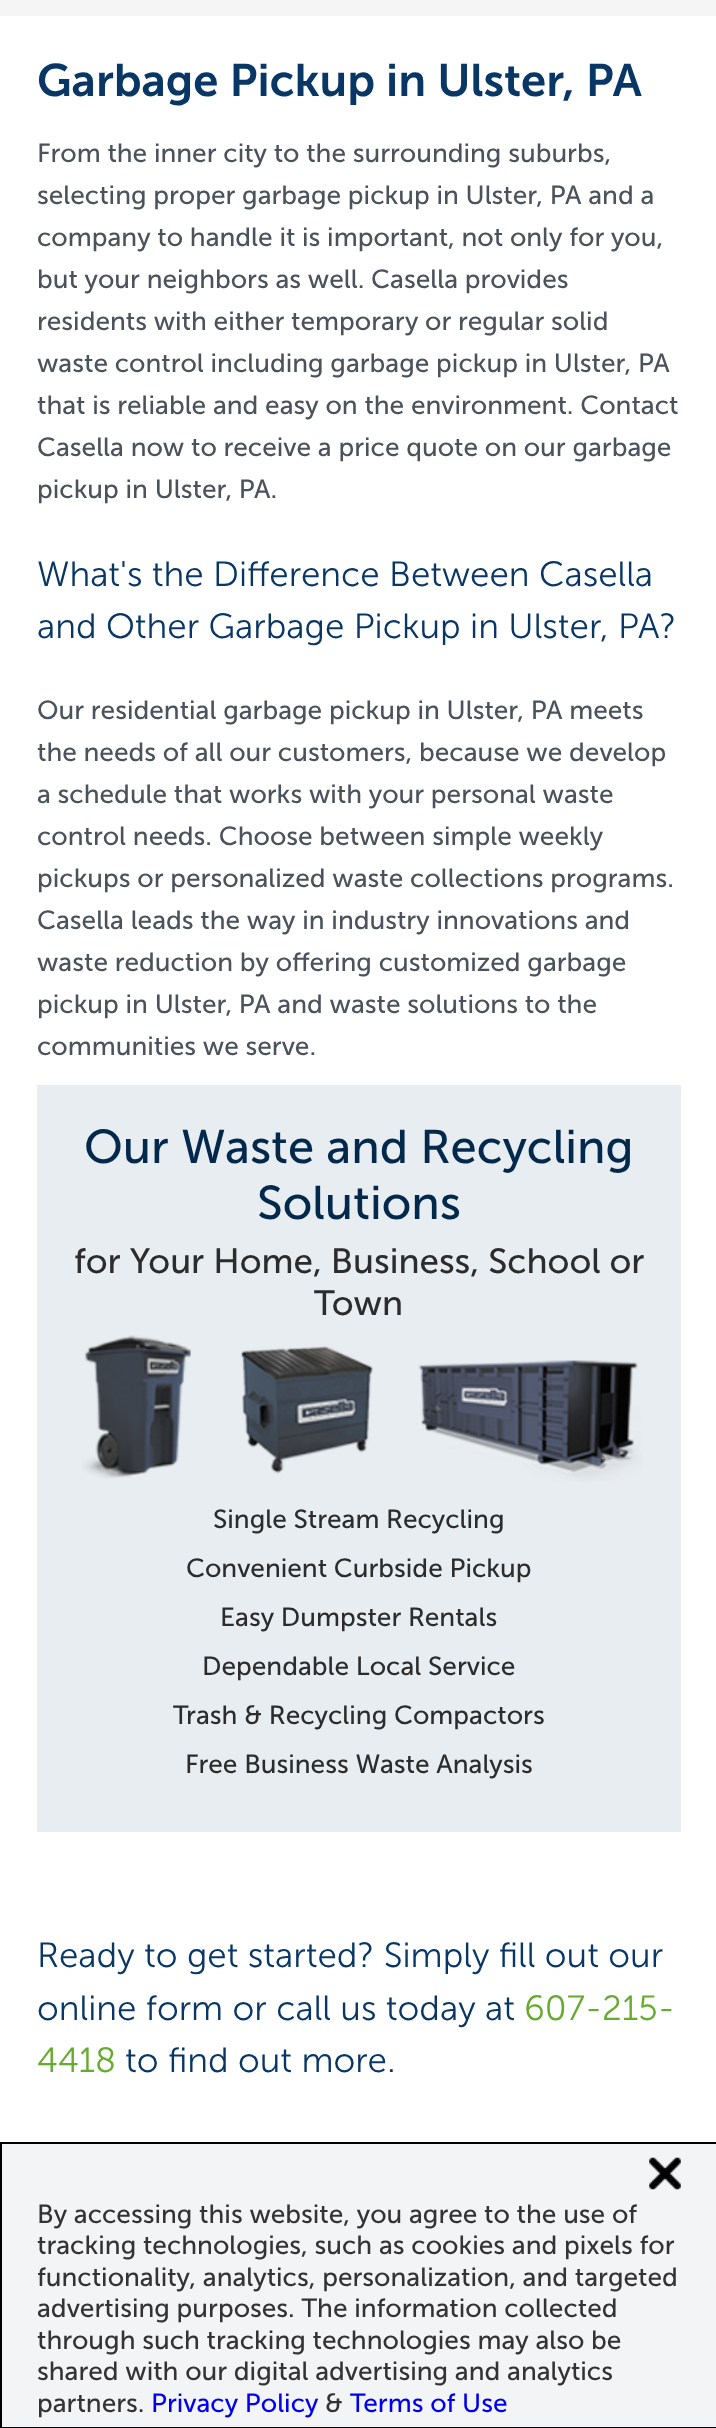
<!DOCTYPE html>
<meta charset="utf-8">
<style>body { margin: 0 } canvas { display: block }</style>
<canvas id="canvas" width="716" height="2428"></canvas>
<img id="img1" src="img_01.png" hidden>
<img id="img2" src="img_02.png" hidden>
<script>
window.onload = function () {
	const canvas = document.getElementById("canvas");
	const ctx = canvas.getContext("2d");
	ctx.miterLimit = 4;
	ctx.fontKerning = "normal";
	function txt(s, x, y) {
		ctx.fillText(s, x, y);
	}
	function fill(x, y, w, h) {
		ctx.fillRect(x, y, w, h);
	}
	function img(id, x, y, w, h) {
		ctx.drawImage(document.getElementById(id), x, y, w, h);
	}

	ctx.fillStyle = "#FFFFFF";
	fill(0, 0, 716, 2428);
	ctx.fillStyle = "#F5F5F5";
	fill(0, 0, 716, 16);
	ctx.fillStyle = "#E8EDF1";
	fill(37, 1085, 644, 747);
	img("img1", 82, 1335, 560, 147);
	ctx.fillStyle = "#F2F4F5";
	ctx.beginPath();
	ctx.rect(1, 2143, 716, 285);
	ctx.fill();
	ctx.strokeStyle = "#000000";
	ctx.lineWidth = 2;
	ctx.stroke();
	img("img2", 649, 2157, 32, 33);
	ctx.font = "600 45.5px 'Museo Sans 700'";
	ctx.fillStyle = "#083665";
	txt("Garbage Pickup in Ulster, PA", 37, 96);
	ctx.font = "26.25px 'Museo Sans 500'";
	ctx.fillStyle = "#4B525C";
	txt("From the inner city to the surrounding suburbs,", 37, 162);
	txt("selecting proper garbage pickup in Ulster, PA and a", 37, 204);
	txt("company to handle it is important, not only for you,", 37, 246);
	txt("but your neighbors as well. Casella provides", 37, 288);
	txt("residents with either temporary or regular solid", 37, 330);
	txt("waste control including garbage pickup in Ulster, PA", 37, 372);
	txt("that is reliable and easy on the environment. Contact", 37, 414);
	txt("Casella now to receive a price quote on our garbage", 37, 456);
	txt("pickup in Ulster, PA.", 37, 498);
	ctx.font = "300 35px 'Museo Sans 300'";
	ctx.fillStyle = "#083665";
	txt("What's the Difference Between Casella", 37, 586);
	txt("and Other Garbage Pickup in Ulster, PA?", 37, 638);
	ctx.font = "26.25px 'Museo Sans 500'";
	ctx.fillStyle = "#4B525C";
	txt("Our residential garbage pickup in Ulster, PA meets", 37, 719);
	txt("the needs of all our customers, because we develop", 37, 761);
	txt("a schedule that works with your personal waste", 37, 803);
	txt("control needs. Choose between simple weekly", 37, 845);
	txt("pickups or personalized waste collections programs.", 37, 887);
	txt("Casella leads the way in industry innovations and", 37, 929);
	txt("waste reduction by offering customized garbage", 37, 971);
	txt("pickup in Ulster, PA and waste solutions to the", 37, 1013);
	txt("communities we serve.", 37, 1055);
	ctx.font = "47.25px 'Museo Sans 500'";
	ctx.fillStyle = "#02294C";
	txt("Our Waste and Recycling", 84, 1163);
	txt("Solutions", 257, 1219);
	ctx.font = "35px 'Museo Sans 500'";
	ctx.fillStyle = "#2C2C2C";
	txt("for Your Home, Business, School or", 74, 1273);
	txt("Town", 314, 1315);
	ctx.font = "26.25px 'Museo Sans 500'";
	txt("Single Stream Recycling", 213, 1528);
	txt("Convenient Curbside Pickup", 186, 1577);
	txt("Easy Dumpster Rentals", 220, 1626);
	txt("Dependable Local Service", 202, 1675);
	txt("Trash & Recycling Compactors", 173, 1724);
	txt("Free Business Waste Analysis", 185, 1773);
	ctx.font = "300 35px 'Museo Sans 300'";
	ctx.fillStyle = "#083665";
	txt("Ready to get started? Simply fill out our", 37, 1967);
	txt("online form or call us today at", 37, 2020);
	ctx.fillStyle = "#65AB2C";
	txt("607-215-", 524, 2020);
	txt("4418", 37, 2072);
	ctx.fillStyle = "#083665";
	txt("to find out more.", 125, 2072);
	ctx.font = "26.25px 'Museo Sans 500'";
	ctx.fillStyle = "#333333";
	txt("By accessing this website, you agree to the use of", 37, 2223);
	txt("tracking technologies, such as cookies and pixels for", 37, 2254);
	txt("functionality, analytics, personalization, and targeted", 37, 2286);
	txt("advertising purposes. The information collected", 37, 2317);
	txt("through such tracking technologies may also be", 37, 2349);
	txt("shared with our digital advertising and analytics", 37, 2380);
	txt("partners.", 37, 2412);
	ctx.fillStyle = "#0000EE";
	txt("Privacy Policy", 151, 2412);
	ctx.fillStyle = "#333333";
	txt("&", 325, 2412);
	ctx.fillStyle = "#0000EE";
	txt("Terms of Use", 350, 2412);
};
</script>
